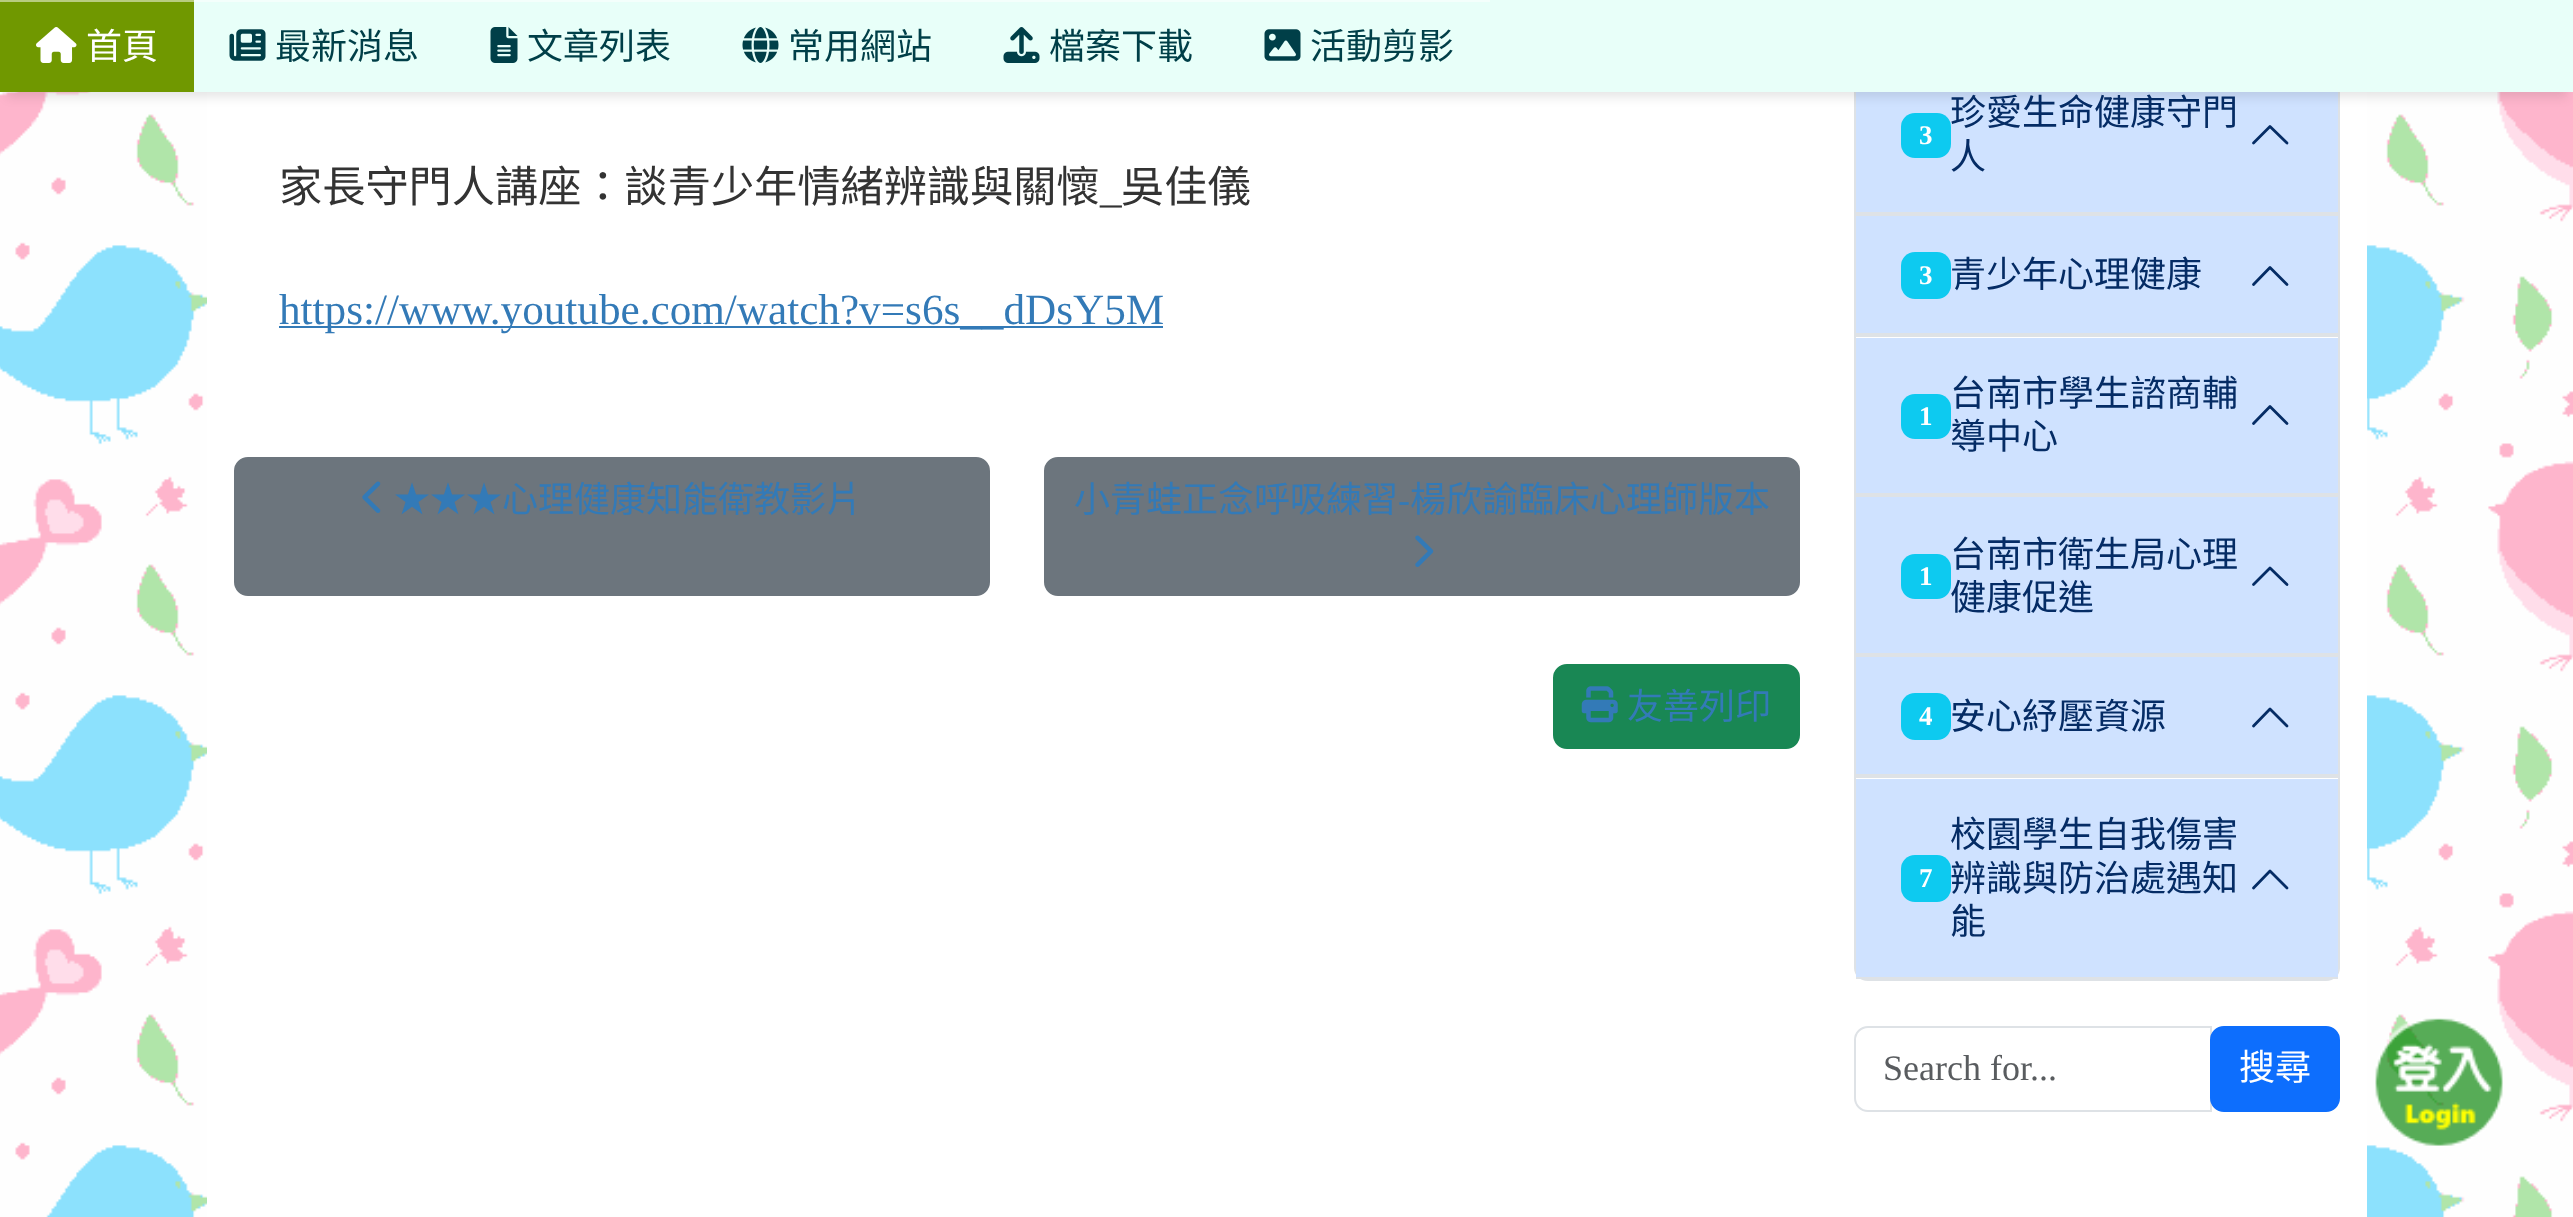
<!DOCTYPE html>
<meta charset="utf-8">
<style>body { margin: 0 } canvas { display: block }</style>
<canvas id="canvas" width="2573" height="1217"></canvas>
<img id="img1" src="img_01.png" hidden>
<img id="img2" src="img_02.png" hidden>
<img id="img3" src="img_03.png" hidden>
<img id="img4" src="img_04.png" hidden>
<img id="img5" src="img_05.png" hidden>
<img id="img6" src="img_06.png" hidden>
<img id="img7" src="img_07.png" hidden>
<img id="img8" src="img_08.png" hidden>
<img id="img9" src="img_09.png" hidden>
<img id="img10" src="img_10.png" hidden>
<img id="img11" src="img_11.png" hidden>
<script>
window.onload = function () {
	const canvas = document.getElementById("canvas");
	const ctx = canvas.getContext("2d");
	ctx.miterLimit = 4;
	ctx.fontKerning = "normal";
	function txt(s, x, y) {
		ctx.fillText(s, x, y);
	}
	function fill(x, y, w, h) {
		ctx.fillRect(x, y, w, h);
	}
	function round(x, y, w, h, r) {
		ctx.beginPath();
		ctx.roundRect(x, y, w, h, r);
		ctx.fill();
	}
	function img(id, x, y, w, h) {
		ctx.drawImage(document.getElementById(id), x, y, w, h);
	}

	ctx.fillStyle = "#FFFFFF";
	fill(0, 0, 2573, 1217);
	img("img1", 0, 92, 2573, 1125);
	fill(207, 92, 2160, 1125);
	ctx.fillStyle = "#DEE2E6";
	fill(2338, 92, 2, 687);
	fill(1854, 214, 486, 2);
	fill(1854, 92, 2, 124);
	ctx.fillStyle = "#CFE2FF";
	fill(1856, 92, 482, 120);
	ctx.fillStyle = "#0DCAF0";
	round(1901, 113, 50, 45, 14);
	ctx.fillStyle = "rgba(0, 0, 0, 0.1)";
	ctx.filter = "blur(5.5px)";
	ctx.beginPath();
	ctx.rect(7, 18, 2560, 79);
	ctx.fill();
	ctx.filter = "none";
	ctx.fillStyle = "#E8FFF9";
	fill(194, 0, 2379, 92);
	ctx.fillStyle = "#709800";
	fill(0, 2, 194, 90);
	ctx.fillStyle = "#B8CC80";
	fill(0, 0, 194, 2);
	img("img2", 36, 27, 41, 36);
	ctx.fillStyle = "#F4FFFC";
	fill(194, 0, 1296, 2);
	img("img3", 229, 29, 37, 32);
	img("img4", 490, 27, 28, 36);
	img("img5", 742, 27, 37, 36);
	img("img6", 1003, 27, 37, 36);
	img("img7", 1264, 29, 37, 32);
	ctx.fillStyle = "#337AB7";
	fill(279, 326, 884, 2);
	ctx.fillStyle = "#6C757D";
	ctx.beginPath();
	ctx.roundRect(235, 458, 754, 137, 13);
	ctx.fill();
	ctx.strokeStyle = "#6C757D";
	ctx.lineWidth = 2;
	ctx.stroke();
	img("img8", 362, 481, 19, 32);
	ctx.beginPath();
	ctx.roundRect(1045, 458, 754, 137, 13);
	ctx.fill();
	ctx.stroke();
	img("img9", 1415, 535, 19, 32);
	ctx.fillStyle = "#198754";
	ctx.beginPath();
	ctx.roundRect(1554, 665, 245, 83, 13);
	ctx.fill();
	ctx.strokeStyle = "#198754";
	ctx.stroke();
	img("img10", 1581, 686, 37, 37);
	ctx.fillStyle = "#DEE2E6";
	fill(1856, 212, 482, 2);
	ctx.beginPath();
	ctx.moveTo(2287, 143);
	ctx.lineTo(2270, 126.5);
	ctx.lineTo(2253.5, 143);
	ctx.strokeStyle = "#052C65";
	ctx.lineWidth = 2.8;
	ctx.lineCap = "round";
	ctx.lineJoin = "round";
	ctx.stroke();
	fill(1854, 335, 486, 2);
	fill(1854, 216, 2, 122);
	ctx.fillStyle = "#CFE2FF";
	fill(1856, 216, 482, 117);
	ctx.fillStyle = "#DEE2E6";
	fill(1856, 333, 482, 2);
	ctx.fillStyle = "#0DCAF0";
	round(1901, 252, 50, 47, 14);
	ctx.beginPath();
	ctx.moveTo(2287, 284.5);
	ctx.lineTo(2270, 267.5);
	ctx.lineTo(2253.5, 284.5);
	ctx.stroke();
	ctx.fillStyle = "#DEE2E6";
	fill(1854, 495, 486, 2);
	fill(1854, 338, 2, 159);
	ctx.fillStyle = "#CFE2FF";
	fill(1856, 338, 482, 155);
	ctx.fillStyle = "#DEE2E6";
	fill(1856, 493, 482, 2);
	ctx.fillStyle = "#0DCAF0";
	round(1901, 394, 50, 45, 14);
	ctx.beginPath();
	ctx.moveTo(2287, 423.5);
	ctx.lineTo(2270, 406.5);
	ctx.lineTo(2253.5, 423.5);
	ctx.stroke();
	ctx.fillStyle = "#DEE2E6";
	fill(1854, 655, 486, 2);
	fill(1854, 497, 2, 160);
	ctx.fillStyle = "#CFE2FF";
	fill(1856, 497, 482, 156);
	ctx.fillStyle = "#DEE2E6";
	fill(1856, 653, 482, 2);
	ctx.fillStyle = "#0DCAF0";
	round(1901, 554, 50, 45, 14);
	ctx.beginPath();
	ctx.moveTo(2287, 584.5);
	ctx.lineTo(2270, 568);
	ctx.lineTo(2253.5, 584.5);
	ctx.stroke();
	ctx.fillStyle = "#DEE2E6";
	fill(1854, 776, 486, 2);
	fill(1854, 657, 2, 122);
	ctx.fillStyle = "#CFE2FF";
	fill(1856, 657, 482, 117);
	ctx.fillStyle = "#DEE2E6";
	fill(1856, 774, 482, 2);
	ctx.fillStyle = "#0DCAF0";
	round(1901, 693, 50, 47, 14);
	ctx.beginPath();
	ctx.moveTo(2287, 726);
	ctx.lineTo(2270, 709);
	ctx.lineTo(2253.5, 726);
	ctx.stroke();
	ctx.fillStyle = "#DEE2E6";
	ctx.beginPath();
	ctx.moveTo(1854, 778);
	ctx.lineTo(2340, 778);
	ctx.lineTo(2340, 968);
	ctx.bezierCurveTo(2340, 975, 2334, 981, 2326, 981);
	ctx.lineTo(1868, 981);
	ctx.bezierCurveTo(1860, 981, 1854, 975, 1854, 968);
	ctx.closePath();
	ctx.moveTo(1856, 778);
	ctx.lineTo(2338, 778);
	ctx.lineTo(2338, 968);
	ctx.bezierCurveTo(2338, 974, 2333, 979, 2326, 979);
	ctx.lineTo(1868, 979);
	ctx.bezierCurveTo(1861, 979, 1856, 974, 1856, 968);
	ctx.closePath();
	ctx.fill("evenodd");
	ctx.fillStyle = "#CFE2FF";
	fill(1856, 779, 482, 198);
	ctx.fillStyle = "#DEE2E6";
	fill(1856, 977, 482, 2);
	ctx.fillStyle = "#0DCAF0";
	round(1901, 855, 50, 47, 14);
	ctx.beginPath();
	ctx.moveTo(2287, 888);
	ctx.lineTo(2270, 871);
	ctx.lineTo(2253.5, 888);
	ctx.stroke();
	ctx.beginPath();
	ctx.roundRect(1855, 1027, 356, 84, [13, 0, 0, 13]);
	ctx.strokeStyle = "#DEE2E6";
	ctx.lineWidth = 2;
	ctx.lineJoin = "miter";
	ctx.stroke();
	ctx.fillStyle = "#0D6EFD";
	ctx.beginPath();
	ctx.roundRect(2211, 1027, 128, 84, 13);
	ctx.fill();
	ctx.strokeStyle = "#0D6EFD";
	ctx.stroke();
	img("img11", 2375, 1018, 128, 128);
	ctx.font = "36px Noto Sans CJK TC";
	ctx.fillStyle = "#FFFFFF";
	txt("首頁", 86, 59);
	ctx.fillStyle = "#003F48";
	txt("最新消息", 275, 59);
	txt("文章列表", 527, 59);
	txt("常用網站", 788, 59);
	txt("檔案下載", 1049, 59);
	txt("活動剪影", 1310, 59);
	ctx.font = "43.2px Noto Sans CJK TC";
	ctx.fillStyle = "#333333";
	txt("家長守門人講座：談青少年情緒辨識與關懷", 279, 202);
	txt("吳佳儀", 1121, 202);
	ctx.font = "43.2px Liberation Serif";
	txt("_", 1100, 202);
	ctx.fillStyle = "#337AB7";
	txt("https://www.youtube.com/watch?v=s6s__dDsY5M", 279, 324);
	ctx.font = "36px Noto Sans CJK TC";
	txt("★★★心理健康知能衛教影片", 394, 512);
	txt("小青蛙正念呼吸練習", 1074, 512);
	ctx.font = "36px Liberation Serif";
	txt("-", 1398, 512);
	ctx.font = "36px Noto Sans CJK TC";
	txt("楊欣諭臨床心理師版本", 1410, 512);
	txt("友善列印", 1627, 719);
	ctx.fillStyle = "#052C65";
	txt("珍愛生命健康守門", 1950, 125);
	ctx.font = "bold 27px Liberation Serif";
	ctx.fillStyle = "#FFFFFF";
	txt("3", 1919, 144);
	ctx.font = "36px Noto Sans CJK TC";
	ctx.fillStyle = "#052C65";
	txt("人", 1950, 169);
	ctx.font = "bold 27px Liberation Serif";
	ctx.fillStyle = "#FFFFFF";
	txt("3", 1919, 284);
	ctx.font = "36px Noto Sans CJK TC";
	ctx.fillStyle = "#052C65";
	txt("青少年心理健康", 1950, 287);
	txt("台南市學生諮商輔", 1950, 406);
	ctx.font = "bold 27px Liberation Serif";
	ctx.fillStyle = "#FFFFFF";
	txt("1", 1919, 425);
	ctx.font = "36px Noto Sans CJK TC";
	ctx.fillStyle = "#052C65";
	txt("導中心", 1950, 449);
	txt("台南市衛生局心理", 1950, 567);
	ctx.font = "bold 27px Liberation Serif";
	ctx.fillStyle = "#FFFFFF";
	txt("1", 1919, 585);
	ctx.font = "36px Noto Sans CJK TC";
	ctx.fillStyle = "#052C65";
	txt("健康促進", 1950, 610);
	ctx.font = "bold 27px Liberation Serif";
	ctx.fillStyle = "#FFFFFF";
	txt("4", 1919, 725);
	ctx.font = "36px Noto Sans CJK TC";
	ctx.fillStyle = "#052C65";
	txt("安心紓壓資源", 1950, 729);
	txt("校園學生自我傷害", 1950, 847);
	ctx.font = "bold 27px Liberation Serif";
	ctx.fillStyle = "#FFFFFF";
	txt("7", 1919, 887);
	ctx.font = "36px Noto Sans CJK TC";
	ctx.fillStyle = "#052C65";
	txt("辨識與防治處遇知", 1950, 891);
	txt("能", 1950, 934);
	ctx.font = "36px Liberation Serif";
	ctx.fillStyle = "#595C5F";
	txt("Search for...", 1883, 1080);
	ctx.font = "36px Noto Sans CJK TC";
	ctx.fillStyle = "#FFFFFF";
	txt("搜尋", 2239, 1080);
};
</script>
